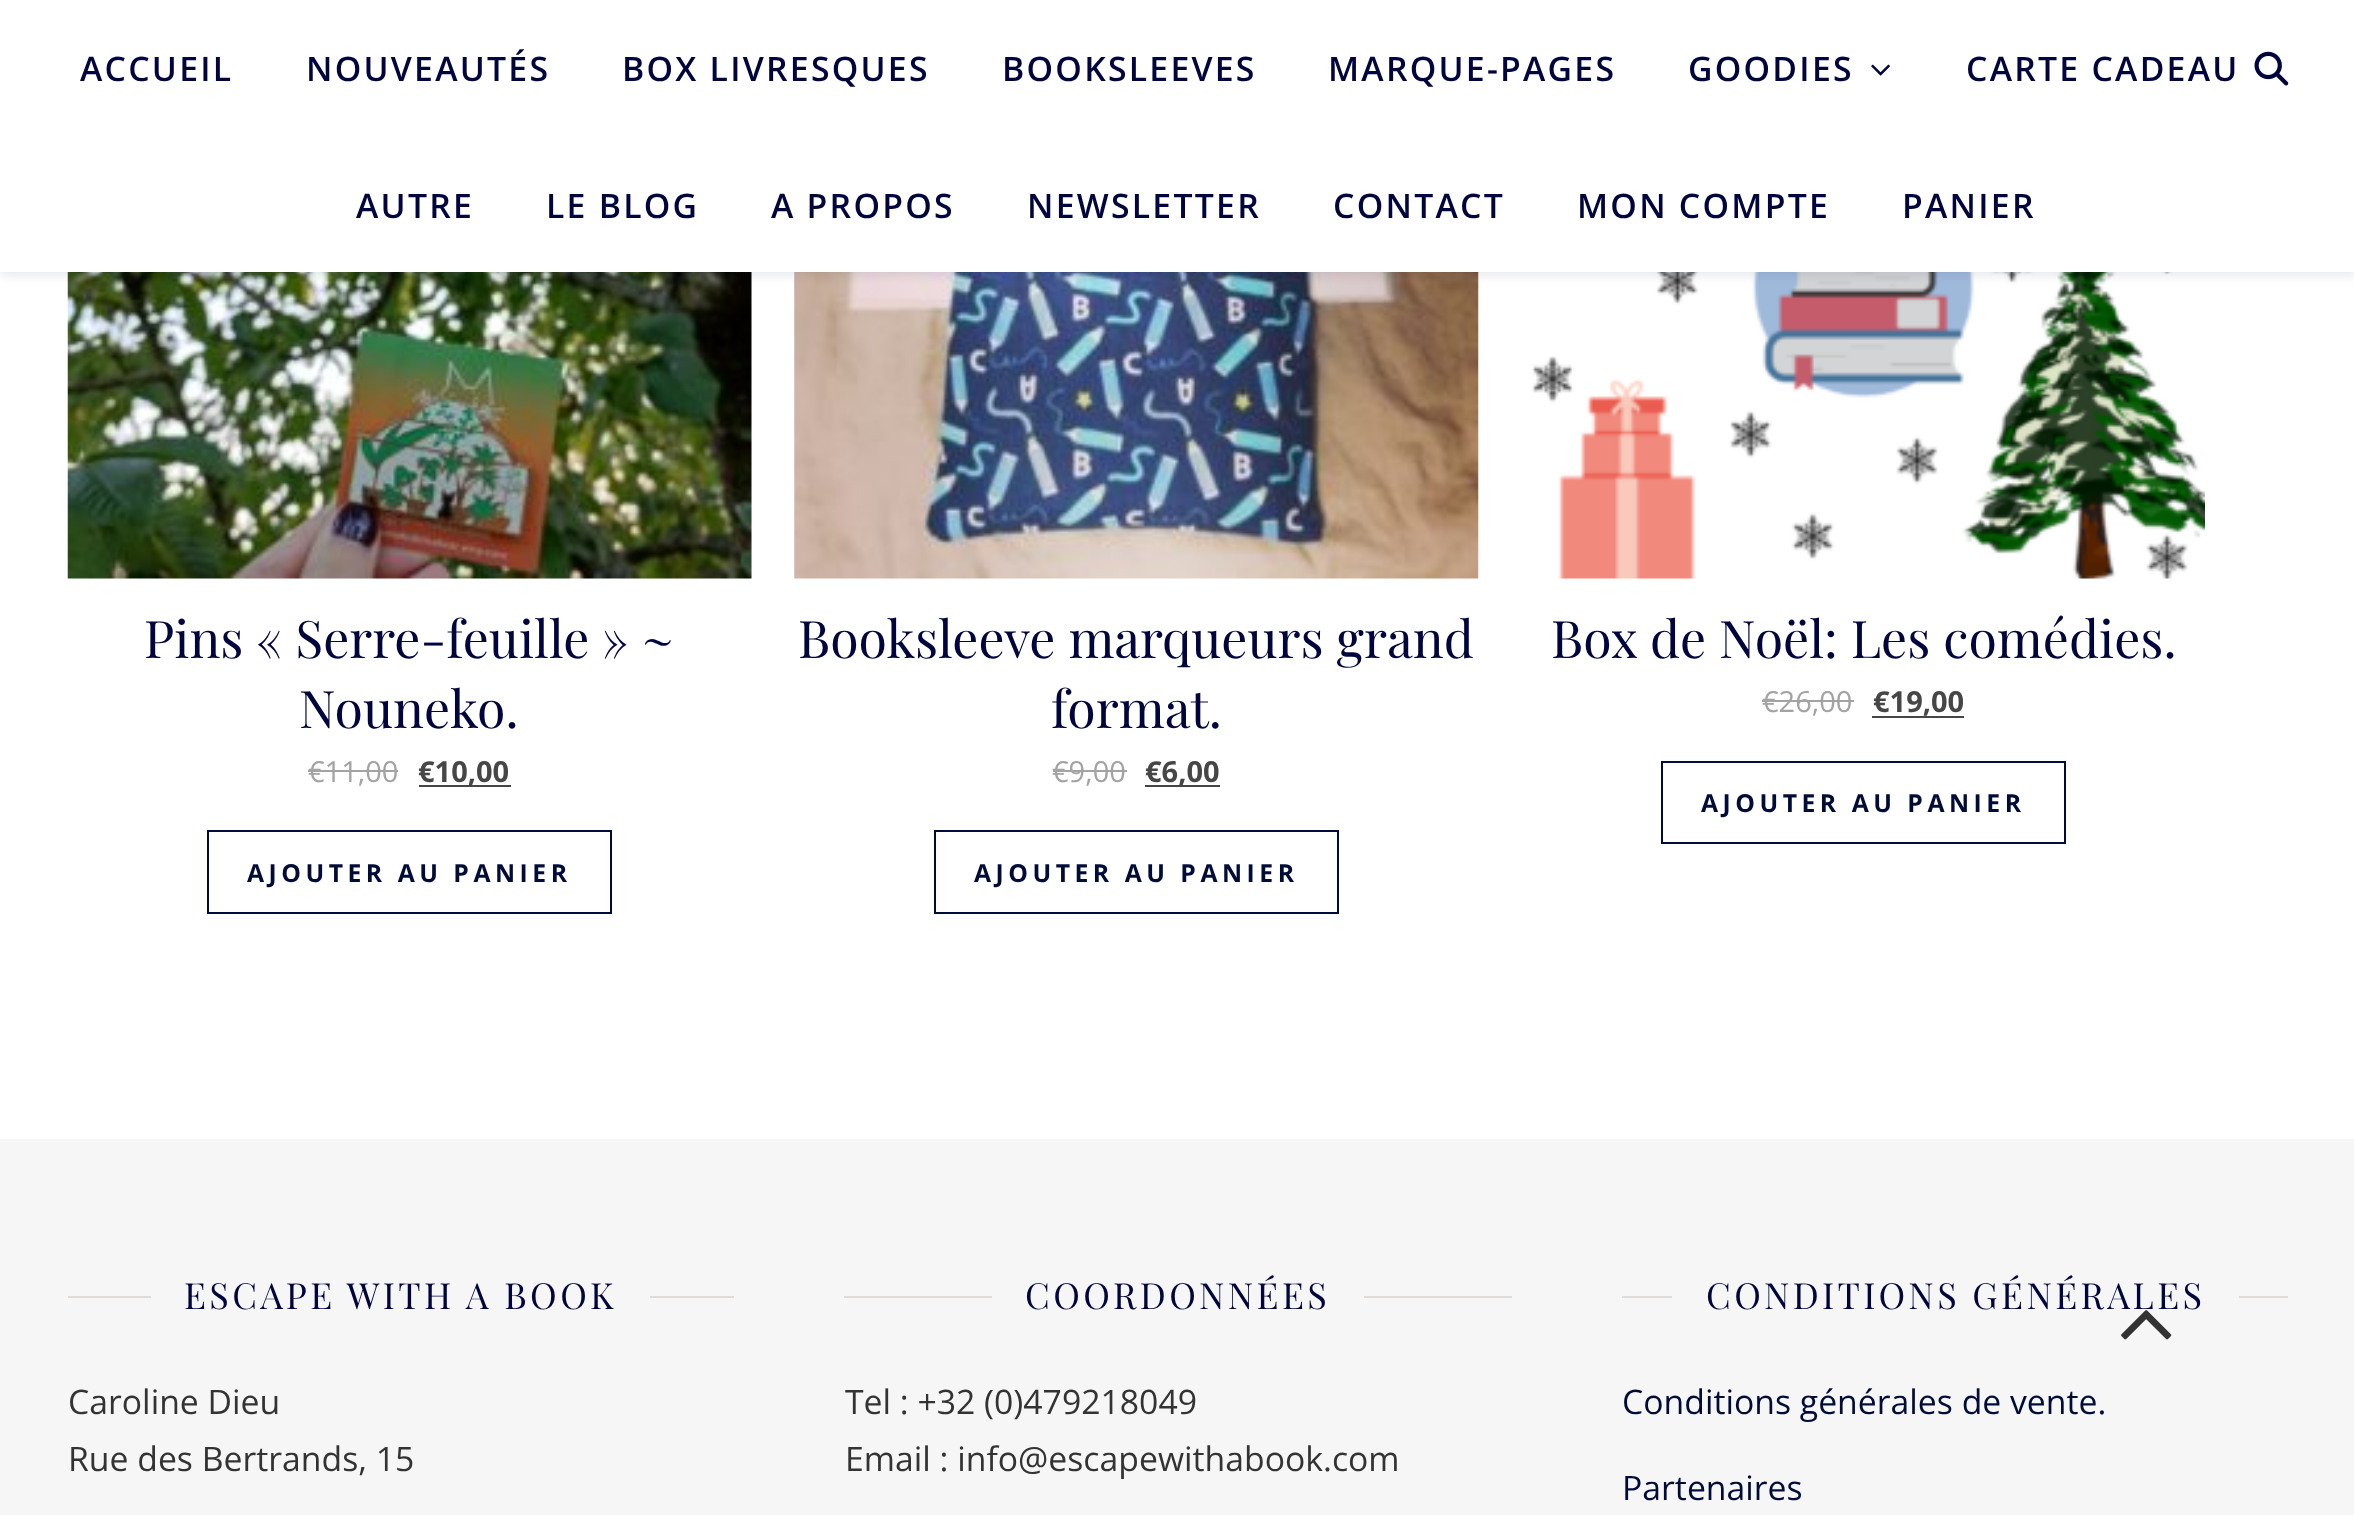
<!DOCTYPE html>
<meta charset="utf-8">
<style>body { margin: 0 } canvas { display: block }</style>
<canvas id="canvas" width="2354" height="1515"></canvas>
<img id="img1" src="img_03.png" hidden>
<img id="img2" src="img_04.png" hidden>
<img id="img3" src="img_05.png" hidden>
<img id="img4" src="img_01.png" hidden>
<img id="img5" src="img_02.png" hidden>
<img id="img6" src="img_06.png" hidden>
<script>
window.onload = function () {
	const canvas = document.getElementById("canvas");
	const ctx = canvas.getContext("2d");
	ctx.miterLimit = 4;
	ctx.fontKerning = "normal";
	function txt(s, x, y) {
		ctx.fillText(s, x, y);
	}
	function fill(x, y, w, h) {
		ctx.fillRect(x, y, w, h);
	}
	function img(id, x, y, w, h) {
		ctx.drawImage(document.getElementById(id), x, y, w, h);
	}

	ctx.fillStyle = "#FFFFFF";
	fill(0, 0, 2354, 1515);
	img("img1", 67, 272, 685, 307);
	img("img2", 794, 272, 685, 307);
	img("img3", 1521, 272, 684, 307);
	ctx.fillStyle = "rgba(1, 5, 61, 0.1)";
	ctx.filter = "blur(5.5px)";
	ctx.beginPath();
	ctx.rect(0, 2, 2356, 273);
	ctx.fill();
	ctx.filter = "none";
	ctx.fillStyle = "#FFFFFF";
	fill(0, 0, 2354, 272);
	img("img4", 1871, 64, 19, 12);
	img("img5", 2254, 51, 35, 35);
	ctx.fillStyle = "#A3A3A3";
	fill(308, 770, 90, 2);
	ctx.fillStyle = "#464646";
	fill(419, 785, 92, 2);
	ctx.strokeStyle = "#000C38";
	ctx.lineWidth = 2;
	ctx.strokeRect(208, 831, 403, 82);
	ctx.fillStyle = "#A3A3A3";
	fill(1053, 770, 74, 2);
	ctx.fillStyle = "#464646";
	fill(1145, 785, 75, 2);
	ctx.strokeRect(935, 831, 403, 82);
	ctx.fillStyle = "#A3A3A3";
	fill(1762, 700, 92, 2);
	ctx.fillStyle = "#464646";
	fill(1872, 716, 92, 2);
	ctx.strokeRect(1662, 762, 403, 81);
	ctx.fillStyle = "#F6F6F6";
	fill(0, 1139, 2354, 376);
	ctx.fillStyle = "#E0DBDB";
	fill(68, 1296, 83, 2);
	fill(650, 1296, 84, 2);
	fill(844, 1296, 148, 2);
	fill(1364, 1296, 148, 2);
	fill(1622, 1296, 50, 2);
	fill(2239, 1296, 49, 2);
	img("img6", 2121, 1310, 51, 30);
	ctx.letterSpacing = "2.25px";
	ctx.font = "600 33.75px Open Sans";
	ctx.fillStyle = "#01053D";
	txt("ACCUEIL", 80, 81);
	txt("NOUVEAUTÉS", 306, 81);
	txt("BOX LIVRESQUES", 622, 81);
	txt("BOOKSLEEVES", 1002, 81);
	txt("MARQUE-PAGES", 1328, 81);
	txt("GOODIES", 1688, 81);
	txt("CARTE CADEAU", 1966, 81);
	txt("AUTRE", 356, 218);
	txt("LE BLOG", 546, 218);
	txt("A PROPOS", 771, 218);
	txt("NEWSLETTER", 1027, 218);
	txt("CONTACT", 1333, 218);
	txt("MON COMPTE", 1577, 218);
	txt("PANIER", 1902, 218);
	ctx.letterSpacing = "0px";
	ctx.font = "51.75px Playfair Display";
	txt("Pins « Serre-feuille » ~", 144, 658);
	txt("Nouneko.", 299, 728);
	ctx.font = "29px Open Sans";
	ctx.fillStyle = "#A3A3A3";
	txt("€11,00", 308, 782);
	ctx.font = "bold 29px Open Sans";
	ctx.fillStyle = "#464646";
	txt("€10,00", 418, 782);
	ctx.letterSpacing = "4.5px";
	ctx.font = "bold 24.75px Open Sans";
	ctx.fillStyle = "#000C38";
	txt("AJOUTER AU PANIER", 247, 882);
	ctx.letterSpacing = "0px";
	ctx.font = "51.75px Playfair Display";
	ctx.fillStyle = "#01053D";
	txt("Booksleeve marqueurs grand", 798, 658);
	txt("format.", 1051, 728);
	ctx.font = "29px Open Sans";
	ctx.fillStyle = "#A3A3A3";
	txt("€9,00", 1052, 782);
	ctx.font = "bold 29px Open Sans";
	ctx.fillStyle = "#464646";
	txt("€6,00", 1145, 782);
	ctx.letterSpacing = "4.5px";
	ctx.font = "bold 24.75px Open Sans";
	ctx.fillStyle = "#000C38";
	txt("AJOUTER AU PANIER", 974, 882);
	ctx.letterSpacing = "0px";
	ctx.font = "51.75px Playfair Display";
	ctx.fillStyle = "#01053D";
	txt("Box de Noël: Les comédies.", 1551, 658);
	ctx.font = "29px Open Sans";
	ctx.fillStyle = "#A3A3A3";
	txt("€26,00", 1762, 712);
	ctx.font = "bold 29px Open Sans";
	ctx.fillStyle = "#464646";
	txt("€19,00", 1873, 712);
	ctx.letterSpacing = "4.5px";
	ctx.font = "bold 24.75px Open Sans";
	ctx.fillStyle = "#000C38";
	txt("AJOUTER AU PANIER", 1701, 812);
	ctx.letterSpacing = "3.4px";
	ctx.font = "36px Playfair Display";
	ctx.fillStyle = "#01053D";
	txt("ESCAPE WITH A BOOK", 184, 1309);
	ctx.letterSpacing = "0px";
	ctx.font = "33.75px Open Sans";
	ctx.fillStyle = "#333333";
	txt("Caroline Dieu", 68, 1414);
	txt("Rue des Bertrands, 15", 68, 1471);
	ctx.letterSpacing = "3.4px";
	ctx.font = "36px Playfair Display";
	ctx.fillStyle = "#01053D";
	txt("COORDONNÉES", 1025, 1309);
	ctx.letterSpacing = "0px";
	ctx.font = "33.75px Open Sans";
	ctx.fillStyle = "#333333";
	txt("Tel : +32 (0)479218049", 845, 1414);
	txt("Email : info@escapewithabook.com", 845, 1471);
	ctx.letterSpacing = "3.4px";
	ctx.font = "36px Playfair Display";
	ctx.fillStyle = "#01053D";
	txt("CONDITIONS GÉNÉRALES", 1706, 1309);
	ctx.letterSpacing = "0px";
	ctx.font = "33.75px Open Sans";
	ctx.fillStyle = "#000C38";
	txt("Conditions générales de vente.", 1622, 1414);
	txt("Partenaires", 1622, 1500);
};
</script>
